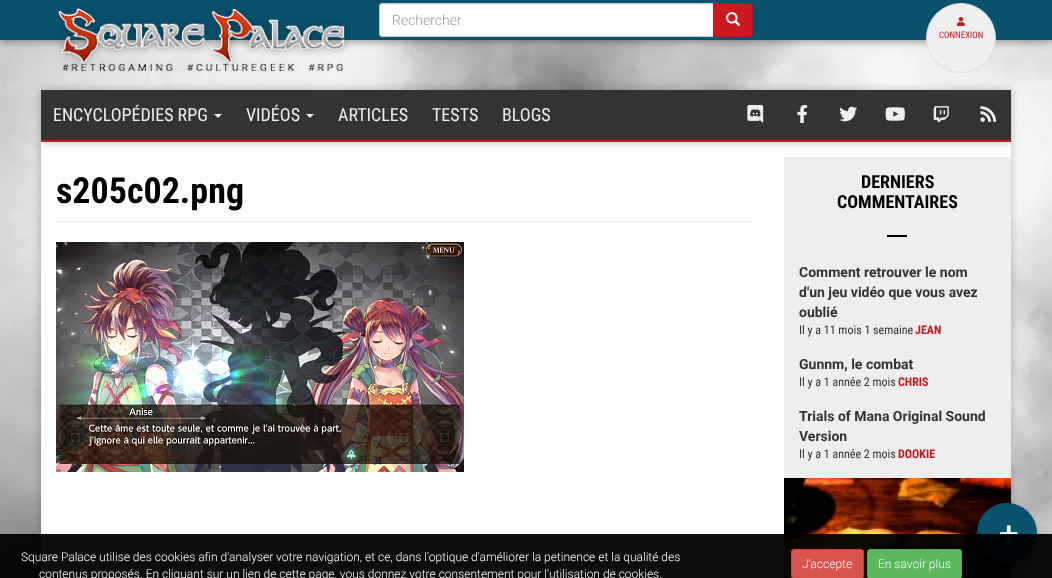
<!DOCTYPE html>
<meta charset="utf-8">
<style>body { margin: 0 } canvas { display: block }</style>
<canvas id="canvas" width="1052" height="578"></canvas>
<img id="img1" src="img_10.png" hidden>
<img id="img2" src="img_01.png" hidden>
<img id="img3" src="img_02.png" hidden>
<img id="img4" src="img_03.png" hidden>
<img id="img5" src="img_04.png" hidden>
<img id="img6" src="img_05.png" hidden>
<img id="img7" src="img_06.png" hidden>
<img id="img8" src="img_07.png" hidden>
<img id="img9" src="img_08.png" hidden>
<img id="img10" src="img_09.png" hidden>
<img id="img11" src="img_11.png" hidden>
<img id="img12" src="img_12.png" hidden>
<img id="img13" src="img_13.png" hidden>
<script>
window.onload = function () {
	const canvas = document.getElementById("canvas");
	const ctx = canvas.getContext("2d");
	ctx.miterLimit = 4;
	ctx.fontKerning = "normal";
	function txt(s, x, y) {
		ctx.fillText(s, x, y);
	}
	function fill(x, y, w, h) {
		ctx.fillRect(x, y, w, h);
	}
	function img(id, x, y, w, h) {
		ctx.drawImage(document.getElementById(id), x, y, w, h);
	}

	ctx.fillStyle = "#FFFFFF";
	fill(0, 0, 1052, 578);
	img("img1", 0, 40, 1052, 538);
	ctx.fillStyle = "rgba(0, 0, 0, 0.5)";
	ctx.filter = "blur(5px)";
	ctx.beginPath();
	ctx.rect(0, 0, 1052, 40);
	ctx.fill();
	ctx.filter = "none";
	ctx.fillStyle = "#08526E";
	fill(0, 0, 1052, 40);
	img("img2", 57, 6, 293, 66);
	ctx.fillStyle = "#FFFFFF";
	ctx.beginPath();
	ctx.roundRect(379, 3, 335, 34, [4, 0, 0, 4]);
	ctx.fill();
	ctx.fillStyle = "#ECECEC";
	ctx.beginPath();
	ctx.moveTo(383, 5);
	ctx.lineTo(713, 5);
	ctx.lineTo(713, 4);
	ctx.lineTo(383, 4);
	ctx.bezierCurveTo(381, 4, 380, 6, 380, 8);
	ctx.bezierCurveTo(380, 6, 381, 5, 383, 5);
	ctx.closePath();
	ctx.fill();
	ctx.beginPath();
	ctx.roundRect(379.5, 3.5, 334, 33, [3.5, 0, 0, 3.5]);
	ctx.strokeStyle = "#CCCCCC";
	ctx.stroke();
	ctx.fillStyle = "#CC181E";
	ctx.beginPath();
	ctx.roundRect(713.5, 3.5, 39, 33, [0, 3.5, 3.5, 0]);
	ctx.fill();
	ctx.strokeStyle = "#B5151B";
	ctx.stroke();
	img("img3", 726, 12, 15, 14);
	ctx.fillStyle = "#EFEFEF";
	ctx.beginPath();
	ctx.arc(961, 38, 34.5, 0, Math.PI * 2);
	ctx.fill();
	ctx.strokeStyle = "#DDDDDD";
	ctx.stroke();
	img("img4", 957, 17, 8, 9);
	ctx.fillStyle = "rgba(0, 0, 0, 0.25)";
	ctx.filter = "blur(5px)";
	ctx.beginPath();
	ctx.rect(41, 142, 970, 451);
	ctx.fill();
	ctx.filter = "none";
	ctx.fillStyle = "#FFFFFF";
	fill(41, 142, 970, 436);
	ctx.fillStyle = "#EEEEEE";
	fill(784, 157, 227, 321);
	ctx.fillStyle = "rgba(0, 0, 0, 0.25)";
	ctx.filter = "blur(5px)";
	ctx.beginPath();
	ctx.rect(41, 90, 970, 52);
	ctx.fill();
	ctx.filter = "none";
	ctx.fillStyle = "#333333";
	fill(41, 90, 970, 50);
	ctx.fillStyle = "#CC181E";
	fill(41, 140, 970, 2);
	ctx.fillStyle = "#EEEEEE";
	ctx.beginPath();
	ctx.moveTo(214, 114);
	ctx.lineTo(222, 114);
	ctx.lineTo(218, 118);
	ctx.closePath();
	ctx.fill();
	ctx.beginPath();
	ctx.moveTo(306, 114);
	ctx.lineTo(314, 114);
	ctx.lineTo(310, 118);
	ctx.closePath();
	ctx.fill();
	img("img5", 747, 105, 17, 18);
	img("img6", 797, 105, 11, 18);
	img("img7", 839, 106, 19, 16);
	img("img8", 885, 107, 20, 14);
	img("img9", 933, 106, 16, 16);
	img("img10", 980, 106, 17, 16);
	fill(56, 221, 698, 1);
	img("img11", 56, 242, 408, 230);
	ctx.fillStyle = "#000000";
	fill(887, 235, 20, 2);
	img("img12", 784, 478, 227, 100);
	ctx.fillStyle = "rgba(0, 0, 0, 0.25)";
	ctx.filter = "blur(5px)";
	ctx.beginPath();
	ctx.roundRect(977, 508, 60, 60, 30);
	ctx.fill();
	ctx.filter = "none";
	ctx.fillStyle = "#08526E";
	ctx.beginPath();
	ctx.arc(1007, 533, 30, 0, Math.PI * 2);
	ctx.fill();
	img("img13", 1000, 525, 18, 18);
	ctx.fillStyle = "rgba(0, 0, 0, 0.95)";
	fill(0, 534, 1052, 44);
	ctx.fillStyle = "#D9534F";
	ctx.beginPath();
	ctx.roundRect(791.5, 549.5, 72, 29, 2.5);
	ctx.fill();
	ctx.strokeStyle = "#D43F3A";
	ctx.stroke();
	ctx.fillStyle = "#5CB85C";
	ctx.beginPath();
	ctx.roundRect(867.5, 549.5, 94, 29, 2.5);
	ctx.fill();
	ctx.strokeStyle = "#4CAE4C";
	ctx.stroke();
	ctx.font = "300 14px Roboto";
	ctx.fillStyle = "#999999";
	txt("Rechercher", 392, 25);
	ctx.font = "9px Roboto Condensed";
	ctx.fillStyle = "#CC181E";
	txt("CONNEXION", 939, 38);
	ctx.font = "18px Roboto Condensed";
	ctx.fillStyle = "#EEEEEE";
	txt("ENCYCLOPÉDIES RPG", 53, 121);
	txt("VIDÉOS", 246, 121);
	txt("ARTICLES", 338, 121);
	txt("TESTS", 432, 121);
	txt("BLOGS", 502, 121);
	ctx.font = "bold 36px Roboto Condensed";
	ctx.fillStyle = "#000000";
	txt("s205c02.png", 56, 203);
	ctx.font = "bold 18px Roboto Condensed";
	txt("DERNIERS", 861, 188);
	txt("COMMENTAIRES", 837, 208);
	ctx.font = "bold 14px Roboto";
	ctx.fillStyle = "#333333";
	txt("Comment retrouver le nom", 799, 277);
	txt("d'un jeu vidéo que vous avez", 799, 297);
	txt("oublié", 799, 317);
	ctx.font = "12px Roboto Condensed";
	txt("Il y a 11 mois 1 semaine", 799, 334);
	ctx.font = "bold 12px Roboto Condensed";
	ctx.fillStyle = "#CC181E";
	txt("JEAN", 915, 334);
	ctx.font = "bold 14px Roboto";
	ctx.fillStyle = "#333333";
	txt("Gunnm, le combat", 799, 369);
	ctx.font = "12px Roboto Condensed";
	txt("Il y a 1 année 2 mois", 799, 386);
	ctx.font = "bold 12px Roboto Condensed";
	ctx.fillStyle = "#CC181E";
	txt("CHRIS", 898, 386);
	ctx.font = "bold 14px Roboto";
	ctx.fillStyle = "#333333";
	txt("Trials of Mana Original Sound", 799, 421);
	txt("Version", 799, 441);
	ctx.font = "12px Roboto Condensed";
	txt("Il y a 1 année 2 mois", 799, 458);
	ctx.font = "bold 12px Roboto Condensed";
	ctx.fillStyle = "#CC181E";
	txt("DOOKIE", 898, 458);
	ctx.font = "300 12px Roboto";
	ctx.fillStyle = "#FFFFFF";
	txt("Square Palace utilise des cookies afin d'analyser votre navigation, et ce, dans l'optique d'améliorer la petinence et la qualité des", 21, 561);
	txt("contenus proposés. En cliquant sur un lien de cette page, vous donnez votre consentement pour l'utilisation de cookies.", 39, 578);
	txt("J'accepte", 802, 568);
	txt("En savoir plus", 878, 568);
};
</script>
